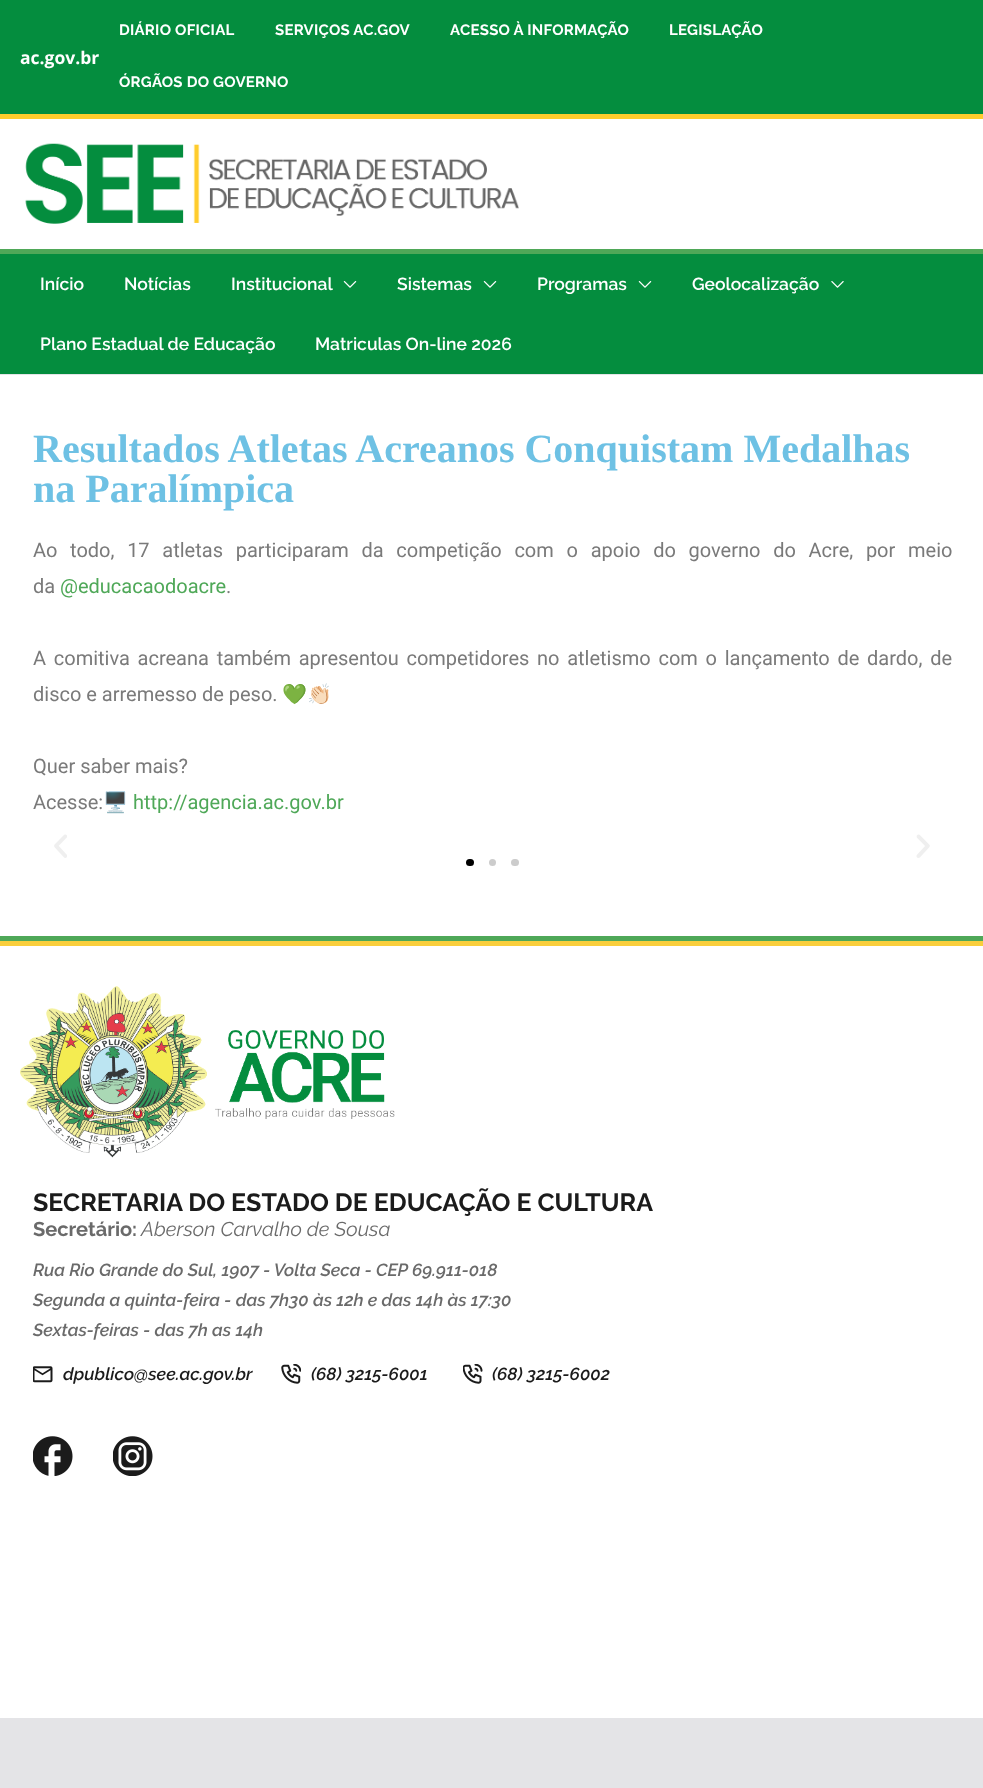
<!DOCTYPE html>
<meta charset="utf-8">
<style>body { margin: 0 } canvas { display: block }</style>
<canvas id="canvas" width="983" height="1788"></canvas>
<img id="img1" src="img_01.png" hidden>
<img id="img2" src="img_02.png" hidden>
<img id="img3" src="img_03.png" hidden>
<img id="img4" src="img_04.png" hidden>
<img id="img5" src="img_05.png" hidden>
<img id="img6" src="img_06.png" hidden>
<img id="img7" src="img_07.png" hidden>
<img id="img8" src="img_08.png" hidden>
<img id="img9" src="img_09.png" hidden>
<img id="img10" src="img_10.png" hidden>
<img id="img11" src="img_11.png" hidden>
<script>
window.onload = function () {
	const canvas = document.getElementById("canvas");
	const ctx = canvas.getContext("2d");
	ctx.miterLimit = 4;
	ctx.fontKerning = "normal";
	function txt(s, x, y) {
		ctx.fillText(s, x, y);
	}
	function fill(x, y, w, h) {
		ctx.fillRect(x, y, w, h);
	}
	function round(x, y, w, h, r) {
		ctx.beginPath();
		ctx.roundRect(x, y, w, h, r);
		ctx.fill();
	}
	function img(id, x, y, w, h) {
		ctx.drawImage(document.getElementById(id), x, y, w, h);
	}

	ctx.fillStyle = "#E4E4E7";
	fill(0, 0, 983, 1788);
	ctx.fillStyle = "#048D3E";
	fill(0, 0, 983, 114);
	ctx.fillStyle = "#FFCC2C";
	fill(0, 114, 983, 5);
	ctx.fillStyle = "#FFFFFF";
	fill(0, 119, 983, 130);
	img("img1", 25, 143, 494, 81);
	ctx.fillStyle = "#048D3E";
	fill(0, 254, 983, 120);
	ctx.fillStyle = "#4FA858";
	fill(0, 249, 983, 5);
	img("img2", 343, 281, 14, 7);
	img("img2", 483, 281, 14, 7);
	img("img2", 638, 281, 14, 7);
	img("img3", 831, 281, 13, 7);
	ctx.fillStyle = "#FFFFFF";
	fill(0, 375, 983, 1343);
	img("img4", 54, 834, 13, 24);
	img("img5", 916, 834, 14, 24);
	ctx.fillStyle = "#000000";
	round(466, 859, 8, 7, 3.5);
	ctx.fillStyle = "#CCCCCC";
	ctx.beginPath();
	ctx.arc(492.5, 862.5, 3.5, 0, Math.PI * 2);
	ctx.fill();
	round(511, 859, 8, 7, 3.5);
	ctx.fillStyle = "#4FA858";
	fill(0, 936, 983, 5);
	ctx.fillStyle = "#F9CE3C";
	fill(0, 941, 983, 5);
	img("img6", 20, 986, 375, 172);
	img("img7", 33, 1366, 20, 17);
	img("img8", 281, 1364, 20, 20);
	img("img9", 463, 1364, 20, 20);
	img("img10", 33, 1436, 40, 40);
	img("img11", 113, 1436, 40, 40);
	ctx.font = "bold 17.5px Open Sans";
	ctx.fillStyle = "#FFFFFF";
	txt("ac.gov.br", 20, 64);
	ctx.letterSpacing = "0.25px";
	ctx.font = "bold 15px Raleway";
	txt("DIÁRIO OFICIAL", 119, 35);
	txt("SERVIÇOS AC.GOV", 275, 35);
	txt("ACESSO À INFORMAÇÃO", 450, 35);
	txt("LEGISLAÇÃO", 669, 35);
	txt("ÓRGÃOS DO GOVERNO", 119, 87);
	ctx.letterSpacing = "0px";
	ctx.font = "600 17.5px Raleway";
	txt("Início", 40, 290);
	txt("Notícias", 124, 290);
	txt("Institucional", 231, 290);
	txt("Sistemas", 397, 290);
	txt("Programas", 537, 290);
	txt("Geolocalização", 692, 290);
	txt("Plano Estadual de Educação", 40, 350);
	txt("Matriculas On-line 2026", 315, 350);
	ctx.font = "bold 40px Liberation Serif";
	ctx.fillStyle = "#6EC1E4";
	txt("Resultados Atletas Acreanos Conquistam Medalhas", 33, 462);
	txt("na Paralímpica", 33, 502);
	ctx.wordSpacing = "7.75px";
	ctx.font = "20px Roboto";
	ctx.fillStyle = "#7A7A7A";
	txt("Ao todo, 17 atletas participaram da competição com o apoio do governo do Acre, por meio", 33, 557);
	ctx.wordSpacing = "0px";
	txt("da", 33, 593);
	ctx.fillStyle = "#4FA858";
	txt("@educacaodoacre", 60, 593);
	ctx.fillStyle = "#7A7A7A";
	txt(".", 226, 593);
	ctx.wordSpacing = "2.75px";
	txt("A comitiva acreana também apresentou competidores no atletismo com o lançamento de dardo, de", 33, 665);
	ctx.wordSpacing = "0px";
	txt("disco e arremesso de peso.", 33, 701);
	ctx.font = "20px Noto Color Emoji";
	txt("💚👏🏻", 282, 701);
	ctx.font = "20px Roboto";
	txt("Quer saber mais?", 33, 773);
	txt("Acesse:", 33, 809);
	ctx.font = "20px Noto Color Emoji";
	txt("🖥️", 103, 809);
	ctx.font = "20px Roboto";
	ctx.fillStyle = "#4FA858";
	txt("http://agencia.ac.gov.br", 133, 809);
	ctx.font = "bold 25px Raleway";
	ctx.fillStyle = "#1B1B1B";
	txt("SECRETARIA DO ESTADO DE EDUCAÇÃO E CULTURA", 33, 1211);
	ctx.font = "bold 20px Raleway";
	ctx.fillStyle = "#6A6A6A";
	txt("Secretário:", 33, 1236);
	ctx.font = "italic 20px Raleway";
	txt("Aberson Carvalho de Sousa", 141, 1236);
	ctx.font = "italic 600 17.5px Raleway";
	txt("Rua Rio Grande do Sul, 1907 - Volta Seca - CEP 69.911-018", 33, 1276);
	txt("Segunda a quinta-feira - das 7h30 às 12h e das 14h às 17:30", 33, 1306);
	txt("Sextas-feiras - das 7h as 14h", 33, 1336);
	ctx.fillStyle = "#1B1B1B";
	txt("dpublico@see.ac.gov.br", 63, 1380);
	txt("(68) 3215-6001", 311, 1380);
	txt("(68) 3215-6002", 492, 1380);
};
</script>
